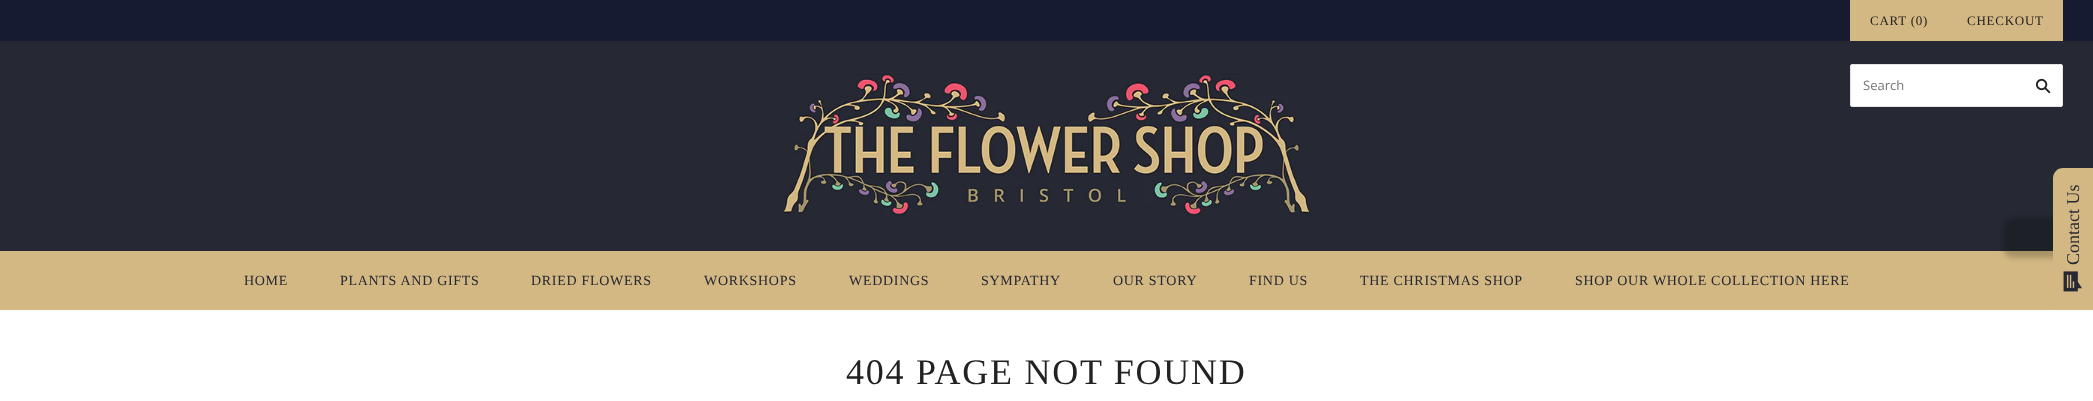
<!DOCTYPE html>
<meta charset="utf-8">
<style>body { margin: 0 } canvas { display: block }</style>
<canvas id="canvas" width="2093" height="401"></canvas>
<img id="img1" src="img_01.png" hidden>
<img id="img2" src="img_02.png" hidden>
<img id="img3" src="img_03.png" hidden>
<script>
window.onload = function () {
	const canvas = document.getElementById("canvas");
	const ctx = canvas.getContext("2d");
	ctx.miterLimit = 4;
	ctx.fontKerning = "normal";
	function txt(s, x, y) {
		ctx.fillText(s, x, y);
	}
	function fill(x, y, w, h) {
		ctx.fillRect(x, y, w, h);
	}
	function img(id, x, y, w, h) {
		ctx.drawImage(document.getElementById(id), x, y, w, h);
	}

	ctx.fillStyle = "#FFFFFF";
	fill(0, 0, 2093, 401);
	ctx.fillStyle = "#171B31";
	fill(0, 0, 2093, 41);
	ctx.fillStyle = "#D3B883";
	fill(1850, 0, 213, 41);
	ctx.fillStyle = "#262833";
	fill(0, 41, 2093, 210);
	ctx.fillStyle = "#FFFFFF";
	ctx.beginPath();
	ctx.roundRect(1850.5, 64.5, 212, 42, 1.5);
	ctx.fill();
	ctx.strokeStyle = "#E4E4E4";
	ctx.stroke();
	img("img1", 2035, 78, 16, 16);
	img("img2", 784, 71, 525, 145);
	ctx.fillStyle = "#D3B883";
	fill(0, 251, 2093, 59);
	ctx.fillStyle = "rgba(0, 0, 0, 0.2)";
	ctx.filter = "blur(2.5px)";
	ctx.beginPath();
	ctx.roundRect(2003, 218, 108, 40, 10);
	ctx.fill();
	ctx.filter = "none";
	ctx.fillStyle = "#D3B883";
	ctx.beginPath();
	ctx.moveTo(2053, 298);
	ctx.lineTo(2053, 178);
	ctx.bezierCurveTo(2053, 173, 2057, 168, 2063, 168);
	ctx.lineTo(2093, 168);
	ctx.lineTo(2093, 308);
	ctx.lineTo(2063, 308);
	ctx.bezierCurveTo(2057, 308, 2053, 303, 2053, 298);
	ctx.closePath();
	ctx.fill();
	img("img3", 2063, 271, 19, 21);
	ctx.letterSpacing = "0.75px";
	ctx.font = "13px Liberation Serif";
	ctx.fillStyle = "#222222";
	txt("CART (0)", 1870, 25);
	txt("CHECKOUT", 1967, 25);
	ctx.letterSpacing = "0px";
	ctx.font = "13px Open Sans";
	ctx.fillStyle = "#757575";
	txt("Search", 1863, 90);
	ctx.letterSpacing = "0.7px";
	ctx.font = "14px Liberation Serif";
	ctx.fillStyle = "#262833";
	txt("HOME", 244, 285);
	txt("PLANTS AND GIFTS", 340, 285);
	txt("DRIED FLOWERS", 531, 285);
	txt("WORKSHOPS", 704, 285);
	txt("WEDDINGS", 849, 285);
	txt("SYMPATHY", 981, 285);
	txt("OUR STORY", 1113, 285);
	txt("FIND US", 1249, 285);
	txt("THE CHRISTMAS SHOP", 1360, 285);
	txt("SHOP OUR WHOLE COLLECTION HERE", 1575, 285);
	ctx.letterSpacing = "0px";
	ctx.font = "18px Liberation Serif";
	ctx.save();
	ctx.translate(2079, 265);
	ctx.rotate(-90 * Math.PI / 180);
	ctx.fillText("Contact Us", 0, 0);
	ctx.restore();
	ctx.letterSpacing = "1.75px";
	ctx.font = "36px Liberation Serif";
	ctx.fillStyle = "#222222";
	txt("404 PAGE NOT FOUND", 846, 384);
};
</script>
